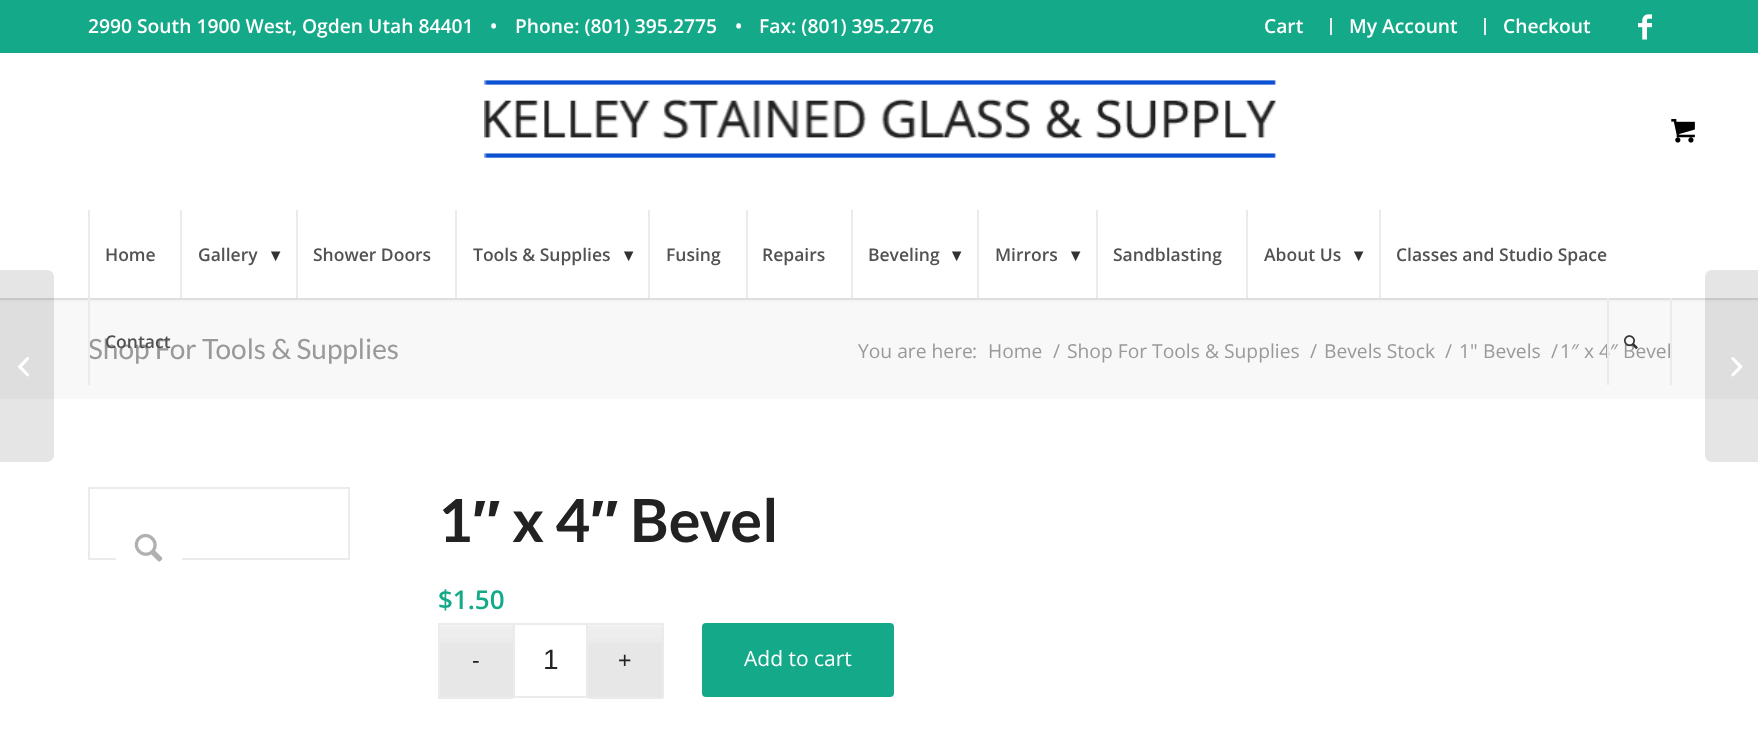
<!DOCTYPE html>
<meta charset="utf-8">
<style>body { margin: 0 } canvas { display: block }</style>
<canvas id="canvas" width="1758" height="731"></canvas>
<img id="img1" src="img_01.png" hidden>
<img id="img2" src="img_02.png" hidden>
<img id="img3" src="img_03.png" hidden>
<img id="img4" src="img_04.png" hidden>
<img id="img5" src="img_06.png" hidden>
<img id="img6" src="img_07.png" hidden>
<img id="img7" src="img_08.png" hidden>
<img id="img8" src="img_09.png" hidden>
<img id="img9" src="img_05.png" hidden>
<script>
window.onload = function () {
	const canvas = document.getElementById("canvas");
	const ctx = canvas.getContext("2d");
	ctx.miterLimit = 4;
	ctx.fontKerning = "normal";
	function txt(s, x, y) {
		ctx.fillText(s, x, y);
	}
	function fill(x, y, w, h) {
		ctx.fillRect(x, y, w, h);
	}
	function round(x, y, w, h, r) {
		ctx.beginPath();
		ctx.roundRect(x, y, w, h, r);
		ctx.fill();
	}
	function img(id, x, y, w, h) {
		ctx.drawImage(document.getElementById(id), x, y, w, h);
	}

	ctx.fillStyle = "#FFFFFF";
	fill(0, 0, 1758, 731);
	ctx.fillStyle = "#F8F8F8";
	fill(0, 300, 1758, 99);
	ctx.fillStyle = "#EBEBEB";
	fill(0, 298, 1758, 2);
	ctx.fillStyle = "rgba(0, 0, 0, 0.1)";
	ctx.filter = "blur(2px)";
	ctx.beginPath();
	ctx.rect(-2, -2, 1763, 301);
	ctx.fill();
	ctx.filter = "none";
	ctx.fillStyle = "#FFFFFF";
	fill(0, 53, 1758, 245);
	ctx.fillStyle = "rgba(0, 0, 0, 0.1)";
	ctx.beginPath();
	ctx.roundRect(0, 270, 54, 192, [0, 7, 7, 0]);
	ctx.fill();
	img("img1", 18, 357, 11, 20);
	ctx.fillStyle = "#14A989";
	fill(0, 0, 1758, 53);
	ctx.fillStyle = "#EBEBEB";
	fill(1330, 18, 2, 17);
	fill(1484, 18, 2, 17);
	img("img2", 1638, 14, 14, 26);
	img("img3", 484, 80, 792, 78);
	img("img4", 1671, 119, 24, 24);
	fill(180, 210, 2, 88);
	fill(296, 210, 2, 88);
	fill(455, 210, 2, 88);
	fill(648, 210, 2, 88);
	fill(746, 210, 2, 88);
	fill(851, 210, 2, 88);
	fill(977, 210, 2, 88);
	fill(1096, 210, 2, 88);
	fill(1246, 210, 2, 88);
	fill(1379, 210, 2, 88);
	fill(1670, 298, 2, 87);
	ctx.fillStyle = "rgba(0, 0, 0, 0.1)";
	ctx.beginPath();
	ctx.moveTo(1712, 270);
	ctx.lineTo(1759, 270);
	ctx.lineTo(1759, 462);
	ctx.lineTo(1712, 462);
	ctx.bezierCurveTo(1708, 462, 1705, 459, 1705, 455);
	ctx.lineTo(1705, 277);
	ctx.bezierCurveTo(1705, 273, 1708, 270, 1712, 270);
	ctx.closePath();
	ctx.fill();
	img("img5", 1731, 357, 12, 20);
	ctx.strokeStyle = "#EBEBEB";
	ctx.lineWidth = 2;
	ctx.strokeRect(89, 488, 260, 71);
	ctx.fillStyle = "#FFFFFF";
	ctx.beginPath();
	ctx.arc(149, 548, 35, 0, Math.PI * 2);
	ctx.fill();
	img("img6", 134, 533, 29, 29);
	ctx.fillStyle = "#E7E7E7";
	fill(440, 625, 73, 72);
	img("img7", 440, 625, 73, 18);
	fill(588, 625, 74, 72);
	img("img8", 588, 625, 74, 18);
	ctx.fillStyle = "#EBEBEB";
	fill(438, 623, 75, 2);
	fill(438, 697, 75, 2);
	fill(438, 623, 2, 75);
	ctx.strokeRect(514, 624, 73, 73);
	fill(588, 623, 75, 2);
	fill(662, 623, 2, 75);
	fill(588, 697, 75, 2);
	ctx.fillStyle = "#14A989";
	round(702, 623, 192, 74, 4);
	ctx.font = "600 19.25px Open Sans";
	ctx.fillStyle = "#FFFFFF";
	txt("2990 South 1900 West, Ogden Utah 84401", 88, 33);
	txt("•", 490, 33);
	txt("Phone: (801) 395.2775", 515, 33);
	txt("•", 735, 33);
	txt("Fax: (801) 395.2776", 759, 33);
	txt("Cart", 1264, 33);
	txt("My Account", 1349, 33);
	txt("Checkout", 1503, 33);
	ctx.font = "600 17.5px Open Sans";
	ctx.fillStyle = "#525252";
	txt("Home", 105, 261);
	txt("Gallery", 198, 261);
	ctx.font = "bold 17.5px DejaVu Sans";
	ctx.fillStyle = "#333333";
	txt("▾", 271, 261);
	ctx.font = "600 17.5px Open Sans";
	ctx.fillStyle = "#525252";
	txt("Shower Doors", 313, 261);
	txt("Tools & Supplies", 473, 261);
	ctx.font = "bold 17.5px DejaVu Sans";
	ctx.fillStyle = "#333333";
	txt("▾", 624, 261);
	ctx.font = "600 17.5px Open Sans";
	ctx.fillStyle = "#525252";
	txt("Fusing", 666, 261);
	txt("Repairs", 762, 261);
	txt("Beveling", 868, 261);
	ctx.font = "bold 17.5px DejaVu Sans";
	ctx.fillStyle = "#333333";
	txt("▾", 952, 261);
	ctx.font = "600 17.5px Open Sans";
	ctx.fillStyle = "#525252";
	txt("Mirrors", 995, 261);
	ctx.font = "bold 17.5px DejaVu Sans";
	ctx.fillStyle = "#333333";
	txt("▾", 1071, 261);
	ctx.font = "600 17.5px Open Sans";
	ctx.fillStyle = "#525252";
	txt("Sandblasting", 1113, 261);
	txt("About Us", 1264, 261);
	ctx.font = "bold 17.5px DejaVu Sans";
	ctx.fillStyle = "#333333";
	txt("▾", 1354, 261);
	ctx.font = "600 17.5px Open Sans";
	ctx.fillStyle = "#525252";
	txt("Classes and Studio Space", 1396, 261);
	ctx.font = "28px Lato";
	ctx.fillStyle = "#999999";
	txt("Shop For Tools & Supplies", 88, 359);
	ctx.font = "600 17.5px Open Sans";
	ctx.fillStyle = "#525252";
	txt("Contact", 105, 348);
	ctx.fillStyle = "#EBEBEB";
	fill(88, 210, 2, 175);
	ctx.font = "19.25px Open Sans";
	ctx.fillStyle = "#999999";
	txt("You are here", 858, 358);
	ctx.font = "19.25px 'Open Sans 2'";
	txt(":", 972, 358);
	ctx.font = "19.25px Open Sans";
	txt("Home", 988, 358);
	ctx.font = "19.25px 'Open Sans 2'";
	txt("/", 1053, 358);
	ctx.font = "19.25px Open Sans";
	txt("Shop For Tools", 1067, 358);
	ctx.font = "19.25px 'Open Sans 2'";
	txt("&", 1205, 358);
	ctx.font = "19.25px Open Sans";
	txt("Supplies", 1224, 358);
	ctx.font = "19.25px 'Open Sans 2'";
	txt("/", 1310, 358);
	ctx.font = "19.25px Open Sans";
	txt("Bevels Stock", 1324, 358);
	ctx.font = "19.25px 'Open Sans 2'";
	txt("/", 1445, 358);
	ctx.font = "19.25px Open Sans";
	txt("1", 1459, 358);
	ctx.font = "19.25px 'Open Sans 2'";
	txt("\"", 1470, 358);
	ctx.font = "19.25px Open Sans";
	txt("Bevels", 1483, 358);
	ctx.font = "19.25px 'Open Sans 2'";
	txt("/", 1551, 358);
	ctx.font = "19.25px Open Sans";
	txt("1", 1560, 358);
	ctx.font = "19.25px 'Open Sans 2'";
	txt("″", 1571, 358);
	ctx.font = "19.25px Open Sans";
	txt("x 4", 1584, 358);
	ctx.fillStyle = "#EBEBEB";
	fill(1607, 298, 2, 87);
	ctx.font = "19.25px 'Open Sans 2'";
	ctx.fillStyle = "#999999";
	txt("″", 1610, 358);
	ctx.font = "19.25px Open Sans";
	txt("Bevel", 1623, 358);
	img("img9", 1624, 335, 14, 14);
	ctx.font = "bold 59.5px Lato";
	ctx.fillStyle = "#222222";
	txt("1", 438, 542);
	ctx.font = "bold 59.5px Liberation Sans";
	txt("″", 472, 542);
	ctx.font = "bold 59.5px Lato";
	txt("x 4", 512, 542);
	ctx.font = "bold 59.5px Liberation Sans";
	txt("″", 590, 542);
	ctx.font = "bold 59.5px Lato";
	txt("Bevel", 630, 542);
	ctx.font = "600 26px Open Sans";
	ctx.fillStyle = "#14A989";
	txt("$1.50", 438, 609);
	ctx.font = "23px Liberation Sans";
	ctx.fillStyle = "#222222";
	txt("-", 472, 668);
	ctx.font = "28px Liberation Sans";
	txt("1", 543, 669);
	ctx.font = "23px Liberation Sans";
	txt("+", 618, 668);
	ctx.font = "21px Open Sans";
	ctx.fillStyle = "#FFFFFF";
	txt("Add to cart", 744, 666);
};
</script>
